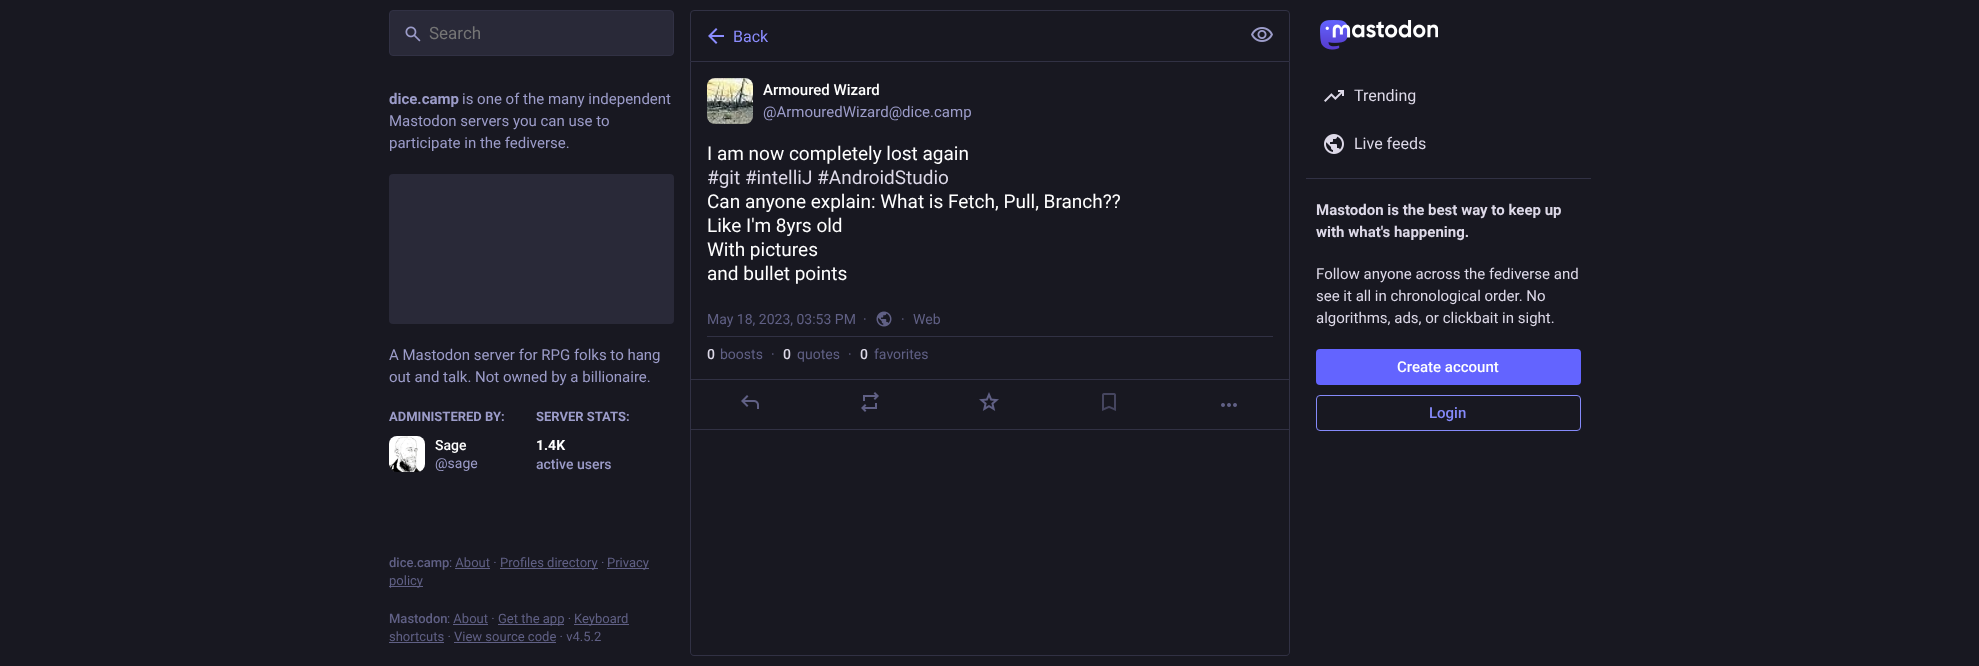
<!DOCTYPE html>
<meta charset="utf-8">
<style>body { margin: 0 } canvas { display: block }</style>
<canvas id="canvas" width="1979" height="666"></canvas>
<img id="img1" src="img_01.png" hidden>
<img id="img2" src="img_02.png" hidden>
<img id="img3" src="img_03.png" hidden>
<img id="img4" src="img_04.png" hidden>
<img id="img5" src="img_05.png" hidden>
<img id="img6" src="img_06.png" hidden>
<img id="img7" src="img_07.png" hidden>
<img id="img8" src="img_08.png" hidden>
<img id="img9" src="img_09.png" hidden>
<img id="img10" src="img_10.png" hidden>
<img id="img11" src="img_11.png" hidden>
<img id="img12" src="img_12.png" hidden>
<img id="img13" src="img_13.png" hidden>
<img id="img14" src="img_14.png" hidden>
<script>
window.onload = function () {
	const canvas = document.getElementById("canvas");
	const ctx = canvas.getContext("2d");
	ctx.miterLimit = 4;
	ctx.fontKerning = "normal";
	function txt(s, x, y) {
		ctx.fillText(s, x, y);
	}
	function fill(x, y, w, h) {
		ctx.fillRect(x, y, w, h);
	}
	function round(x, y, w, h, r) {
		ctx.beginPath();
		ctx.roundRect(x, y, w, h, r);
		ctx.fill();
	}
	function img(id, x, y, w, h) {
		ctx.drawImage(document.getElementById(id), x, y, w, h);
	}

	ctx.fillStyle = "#181821";
	fill(0, 0, 1979, 666);
	ctx.fillStyle = "#292938";
	ctx.beginPath();
	ctx.roundRect(389.5, 10.5, 284, 45, 3.5);
	ctx.fill();
	ctx.strokeStyle = "#313144";
	ctx.stroke();
	img("img1", 405, 26, 16, 16);
	round(389, 174, 285, 150, 4);
	ctx.fillStyle = "#20202C";
	round(389, 436, 36, 36, 8);
	img("img2", 389, 436, 36, 36);
	ctx.fillStyle = "#606085";
	fill(500, 568, 98, 1);
	fill(607, 568, 42, 1);
	fill(455, 568, 35, 1);
	fill(389, 586, 34, 1);
	fill(498, 624, 66, 1);
	fill(574, 624, 55, 1);
	fill(453, 624, 35, 1);
	fill(389, 642, 55, 1);
	fill(454, 642, 102, 1);
	ctx.beginPath();
	ctx.roundRect(690.5, 10.5, 599, 51, [3.5, 3.5, 0, 0]);
	ctx.stroke();
	img("img3", 708, 28, 16, 16);
	img("img4", 1251, 27, 22, 15);
	ctx.fillStyle = "#313144";
	ctx.beginPath();
	ctx.moveTo(690, 62);
	ctx.lineTo(1290, 62);
	ctx.lineTo(1290, 652);
	ctx.bezierCurveTo(1290, 654, 1288, 656, 1286, 656);
	ctx.lineTo(694, 656);
	ctx.bezierCurveTo(692, 656, 690, 654, 690, 652);
	ctx.closePath();
	ctx.moveTo(691, 62);
	ctx.lineTo(1289, 62);
	ctx.lineTo(1289, 652);
	ctx.bezierCurveTo(1289, 654, 1288, 655, 1286, 655);
	ctx.lineTo(694, 655);
	ctx.bezierCurveTo(692, 655, 691, 654, 691, 652);
	ctx.closePath();
	ctx.fill("evenodd");
	ctx.fillStyle = "#20202C";
	round(707, 78, 46, 46, 8);
	img("img5", 707, 78, 46, 46);
	ctx.fillStyle = "#313144";
	fill(707, 336, 566, 1);
	img("img6", 876, 311, 16, 16);
	fill(691, 379, 598, 1);
	fill(691, 429, 598, 1);
	img("img7", 741, 395, 18, 14);
	img("img8", 861, 392, 18, 20);
	img("img9", 979, 392, 20, 19);
	img("img10", 1102, 393, 14, 18);
	img("img11", 1221, 403, 16, 4);
	img("img12", 1320, 20, 118, 30);
	img("img13", 1324, 90, 20, 12);
	img("img14", 1324, 134, 20, 20);
	fill(1306, 178, 285, 1);
	ctx.fillStyle = "#6364FF";
	round(1316, 349, 265, 36, 4);
	ctx.beginPath();
	ctx.roundRect(1316.5, 395.5, 264, 35, 3.5);
	ctx.strokeStyle = "#858AFA";
	ctx.stroke();
	ctx.font = "17px Roboto";
	ctx.fillStyle = "#757575";
	txt("Search", 429, 39);
	ctx.font = "bold 15px Roboto";
	ctx.fillStyle = "#9C9CC9";
	txt("dice.camp", 389, 104);
	ctx.font = "15px Roboto";
	txt("is one of the many independent", 462, 104);
	txt("Mastodon servers you can use to", 389, 126);
	txt("participate in the fediverse.", 389, 148);
	txt("A Mastodon server for RPG folks to hang", 389, 360);
	txt("out and talk. Not owned by a billionaire.", 389, 382);
	ctx.font = "bold 13px Roboto";
	txt("ADMINISTERED BY:", 389, 421);
	ctx.font = "500 14px Roboto";
	ctx.fillStyle = "#FFFFFF";
	txt("Sage", 435, 450);
	ctx.font = "14px Roboto";
	ctx.fillStyle = "#9C9CC9";
	txt("@sage", 435, 468);
	ctx.font = "bold 13px Roboto";
	txt("SERVER STATS:", 536, 421);
	ctx.font = "bold 14px Roboto";
	ctx.fillStyle = "#FFFFFF";
	txt("1.4K", 536, 450);
	ctx.font = "500 14px Roboto";
	ctx.fillStyle = "#9C9CC9";
	txt("active users", 536, 469);
	ctx.font = "500 13px Roboto";
	ctx.fillStyle = "#606085";
	txt("dice.camp", 389, 567);
	ctx.font = "13px Roboto";
	txt(": About ·", 449, 567);
	txt("Profiles directory ·", 500, 567);
	txt("Privacy", 607, 567);
	txt("policy", 389, 585);
	ctx.font = "500 13px Roboto";
	txt("Mastodon", 389, 623);
	ctx.font = "13px Roboto";
	txt(": About ·", 447, 623);
	txt("Get the app ·", 498, 623);
	txt("Keyboard", 574, 623);
	txt("shortcuts · View source code · v4.5.2", 389, 641);
	ctx.font = "16px Roboto";
	ctx.fillStyle = "#8C8DFF";
	txt("Back", 733, 42);
	ctx.font = "500 15px Roboto";
	ctx.fillStyle = "#FFFFFF";
	txt("Armoured Wizard", 763, 95);
	ctx.font = "15px Roboto";
	ctx.fillStyle = "#9C9CC9";
	txt("@ArmouredWizard@dice.camp", 763, 117);
	ctx.font = "19px Roboto";
	ctx.fillStyle = "#FFFFFF";
	txt("I am now completely lost again", 707, 160);
	ctx.fillStyle = "#DDD9E8";
	txt("#git #intelliJ #AndroidStudio", 707, 184);
	ctx.fillStyle = "#FFFFFF";
	txt("Can anyone explain: What is Fetch, Pull, Branch??", 707, 208);
	txt("Like I'm 8yrs old", 707, 232);
	txt("With pictures", 707, 256);
	txt("and bullet points", 707, 280);
	ctx.font = "14px Roboto";
	ctx.fillStyle = "#606085";
	txt("May 18, 2023, 03:53 PM", 707, 324);
	txt("·", 863, 324);
	txt("·", 901, 324);
	txt("Web", 913, 324);
	ctx.font = "500 14px Roboto";
	ctx.fillStyle = "#DDD9E8";
	txt("0", 707, 359);
	ctx.font = "14px Roboto";
	ctx.fillStyle = "#606085";
	txt("boosts", 720, 359);
	txt("·", 771, 359);
	ctx.font = "500 14px Roboto";
	ctx.fillStyle = "#DDD9E8";
	txt("0", 783, 359);
	ctx.font = "14px Roboto";
	ctx.fillStyle = "#606085";
	txt("quotes", 797, 359);
	txt("·", 848, 359);
	ctx.font = "500 14px Roboto";
	ctx.fillStyle = "#DDD9E8";
	txt("0", 860, 359);
	ctx.font = "14px Roboto";
	ctx.fillStyle = "#606085";
	txt("favorites", 874, 359);
	ctx.font = "16px Roboto";
	ctx.fillStyle = "#DDD9E8";
	txt("Trending", 1354, 101);
	txt("Live feeds", 1354, 149);
	ctx.font = "bold 15px Roboto";
	txt("Mastodon is the best way to keep up", 1316, 215);
	txt("with what's happening.", 1316, 237);
	ctx.font = "15px Roboto";
	txt("Follow anyone across the fediverse and", 1316, 279);
	txt("see it all in chronological order. No", 1316, 301);
	txt("algorithms, ads, or clickbait in sight.", 1316, 323);
	ctx.font = "500 15px Roboto";
	ctx.fillStyle = "#FFFFFF";
	txt("Create account", 1397, 372);
	ctx.fillStyle = "#858AFA";
	txt("Login", 1429, 418);
};
</script>
